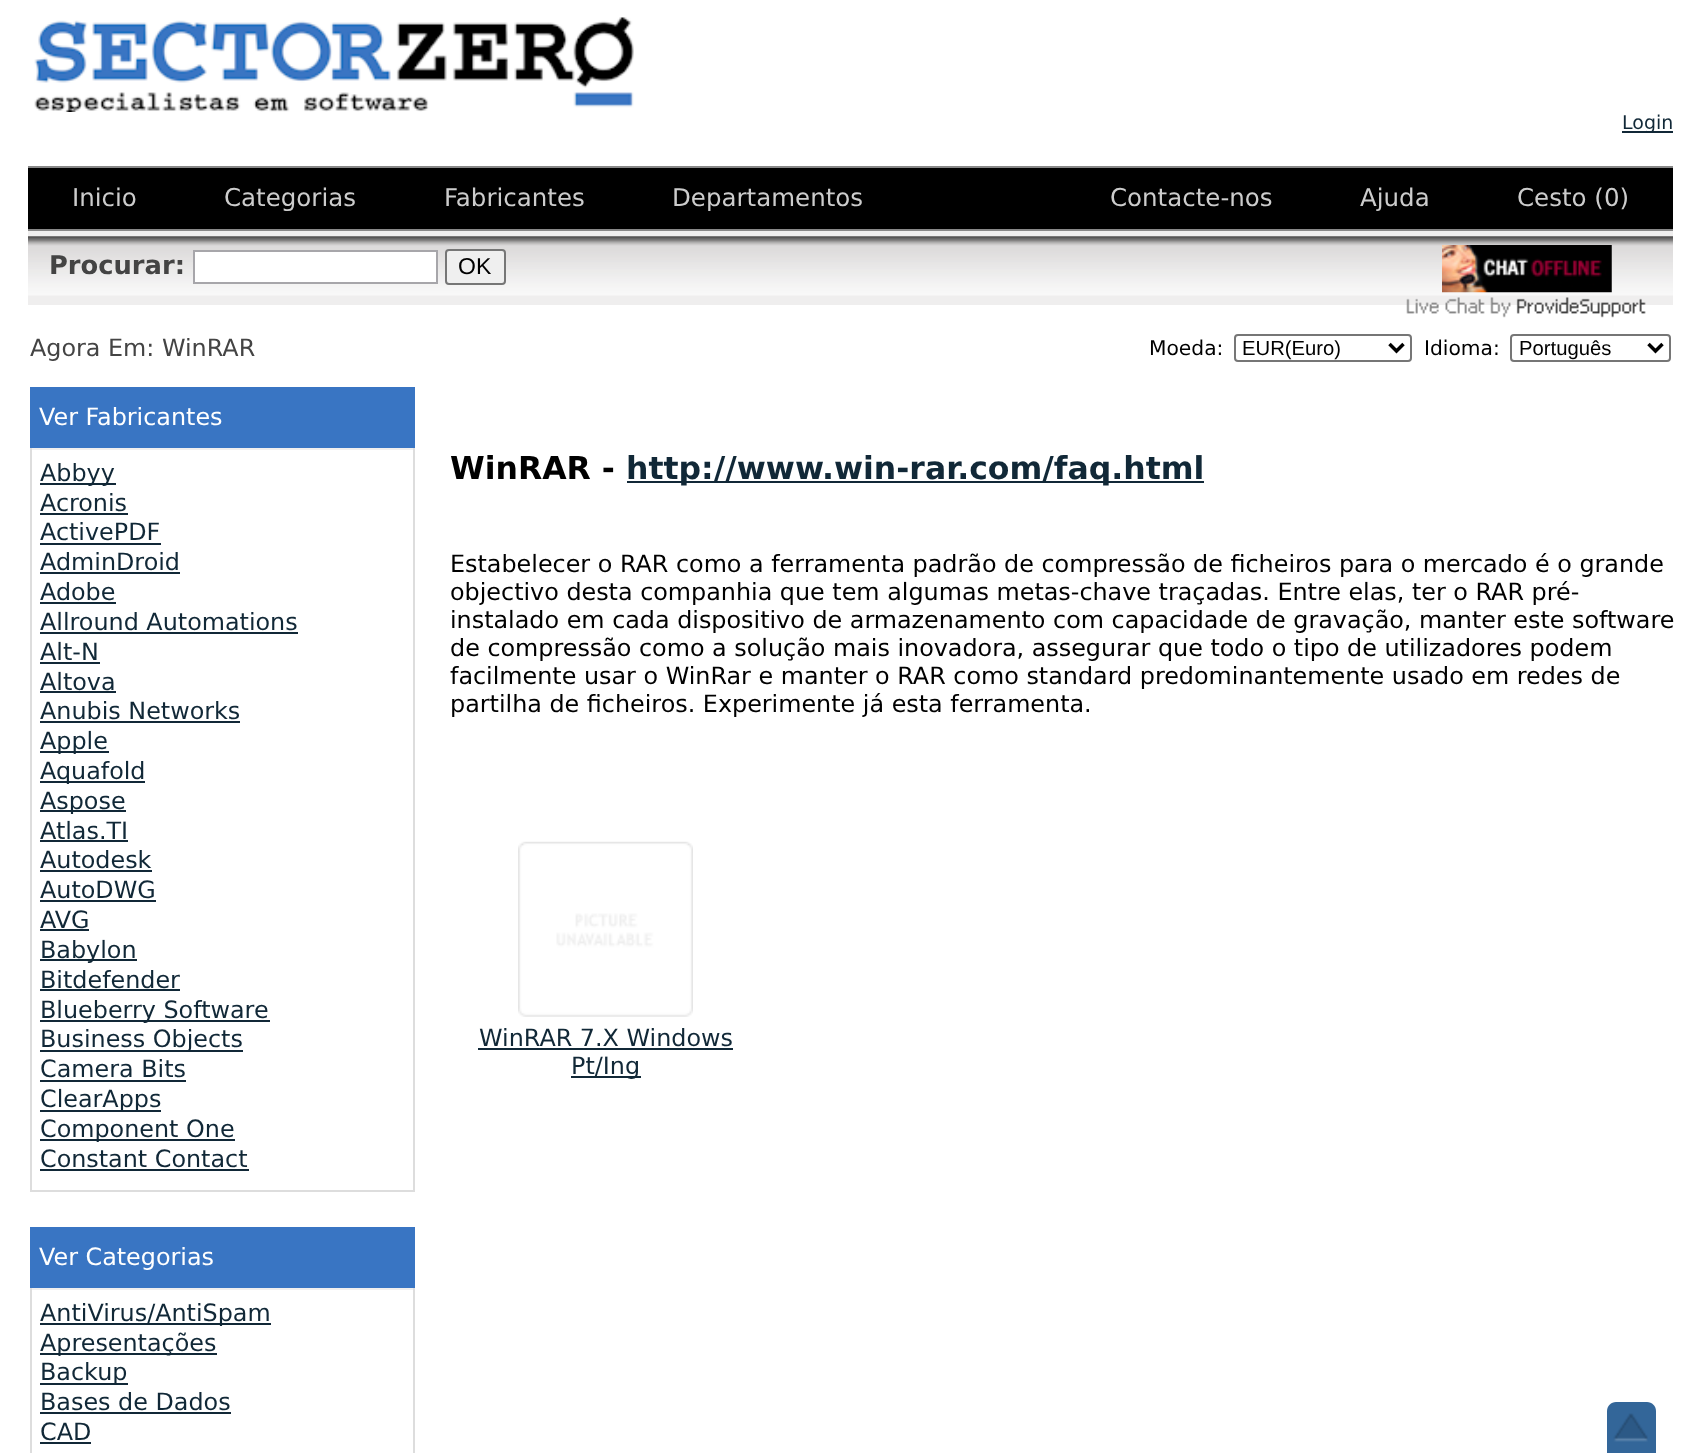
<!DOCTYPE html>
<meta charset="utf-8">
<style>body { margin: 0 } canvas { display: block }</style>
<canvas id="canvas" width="1700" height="1453"></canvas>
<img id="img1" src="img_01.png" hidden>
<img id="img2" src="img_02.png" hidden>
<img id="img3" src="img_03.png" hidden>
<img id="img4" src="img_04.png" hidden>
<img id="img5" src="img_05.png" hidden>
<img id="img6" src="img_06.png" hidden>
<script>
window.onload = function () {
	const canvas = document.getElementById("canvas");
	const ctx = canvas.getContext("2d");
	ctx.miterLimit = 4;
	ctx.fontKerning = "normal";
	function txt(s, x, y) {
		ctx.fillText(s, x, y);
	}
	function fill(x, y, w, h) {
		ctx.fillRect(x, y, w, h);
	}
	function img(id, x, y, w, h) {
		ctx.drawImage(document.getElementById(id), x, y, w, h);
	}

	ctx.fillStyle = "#FFFFFF";
	fill(0, 0, 1700, 1453);
	img("img1", 34, 17, 600, 95);
	ctx.fillStyle = "#112837";
	fill(1622, 131, 51, 2);
	ctx.fillStyle = "#888888";
	fill(28, 166, 1645, 2);
	fill(28, 229, 1645, 2);
	ctx.fillStyle = "#000000";
	fill(28, 168, 1645, 61);
	ctx.fillStyle = "#EFEEEE";
	fill(28, 231, 1645, 74);
	img("img2", 28, 236, 1645, 60);
	ctx.fillStyle = "#FFFFFF";
	ctx.beginPath();
	ctx.rect(194, 251, 243, 32);
	ctx.fill();
	ctx.strokeStyle = "#A7A6AA";
	ctx.lineWidth = 2;
	ctx.stroke();
	ctx.fillStyle = "#EFEFEF";
	ctx.beginPath();
	ctx.roundRect(446, 250, 59, 34, 3);
	ctx.fill();
	ctx.strokeStyle = "#767676";
	ctx.stroke();
	img("img3", 1442, 245, 170, 48);
	img("img4", 1406, 297, 240, 21);
	ctx.beginPath();
	ctx.roundRect(1235, 335, 176, 26, 3);
	ctx.stroke();
	ctx.beginPath();
	ctx.moveTo(1389.5, 344);
	ctx.lineTo(1396.5, 351);
	ctx.lineTo(1403.5, 344);
	ctx.strokeStyle = "#000000";
	ctx.lineWidth = 3.5;
	ctx.stroke();
	ctx.beginPath();
	ctx.roundRect(1511, 335, 159, 26, 3);
	ctx.strokeStyle = "#767676";
	ctx.lineWidth = 2;
	ctx.stroke();
	ctx.beginPath();
	ctx.moveTo(1648.5, 344);
	ctx.lineTo(1655.5, 351);
	ctx.lineTo(1662.5, 344);
	ctx.strokeStyle = "#000000";
	ctx.lineWidth = 3.5;
	ctx.stroke();
	ctx.fillStyle = "#3975C3";
	fill(30, 387, 385, 61);
	ctx.fillStyle = "#F0EFEF";
	fill(30, 448, 385, 2);
	ctx.fillStyle = "#DDDDDD";
	fill(413, 448, 2, 744);
	fill(30, 1190, 385, 2);
	fill(30, 448, 2, 744);
	ctx.fillStyle = "#112837";
	fill(40, 483, 76, 2);
	fill(40, 513, 88, 2);
	fill(40, 543, 121, 2);
	fill(40, 572, 140, 2);
	fill(40, 602, 76, 2);
	fill(40, 632, 258, 2);
	fill(40, 662, 60, 2);
	fill(40, 691, 76, 2);
	fill(40, 721, 200, 2);
	fill(40, 751, 69, 2);
	fill(40, 781, 105, 2);
	fill(40, 810, 86, 2);
	fill(40, 840, 88, 2);
	fill(40, 870, 112, 2);
	fill(40, 900, 116, 2);
	fill(40, 929, 49, 2);
	fill(40, 959, 97, 2);
	fill(40, 989, 140, 2);
	fill(40, 1020, 230, 2);
	fill(40, 1050, 203, 2);
	fill(40, 1080, 146, 2);
	fill(40, 1110, 121, 2);
	fill(40, 1139, 195, 2);
	fill(40, 1169, 209, 2);
	ctx.fillStyle = "#3975C3";
	fill(30, 1227, 385, 61);
	ctx.fillStyle = "#F0EFEF";
	fill(30, 1288, 385, 2);
	ctx.fillStyle = "#DDDDDD";
	fill(413, 1288, 2, 165);
	fill(30, 1288, 2, 165);
	ctx.fillStyle = "#112837";
	fill(40, 1323, 231, 2);
	fill(40, 1353, 177, 2);
	fill(40, 1383, 88, 2);
	fill(40, 1412, 191, 2);
	fill(40, 1442, 51, 2);
	fill(627, 481, 577, 2);
	img("img5", 518, 841, 175, 176);
	fill(478, 1048, 255, 2);
	fill(571, 1076, 70, 2);
	ctx.fillStyle = "#336699";
	ctx.beginPath();
	ctx.moveTo(1616, 1402);
	ctx.lineTo(1647, 1402);
	ctx.bezierCurveTo(1652, 1402, 1656, 1406, 1656, 1411);
	ctx.lineTo(1656, 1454);
	ctx.lineTo(1607, 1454);
	ctx.lineTo(1607, 1411);
	ctx.bezierCurveTo(1607, 1406, 1611, 1402, 1616, 1402);
	ctx.closePath();
	ctx.fill();
	img("img6", 1613, 1413, 35, 29);
	ctx.font = "19px DejaVu Sans";
	ctx.fillStyle = "#112837";
	txt("Login", 1622, 129);
	ctx.font = "24.5px DejaVu Sans";
	ctx.fillStyle = "#CCCCCC";
	txt("Inicio", 72, 206);
	txt("Categorias", 224, 206);
	txt("Fabricantes", 444, 206);
	txt("Departamentos", 672, 206);
	txt("Contacte-nos", 1110, 206);
	txt("Ajuda", 1360, 206);
	txt("Cesto (0)", 1517, 206);
	ctx.font = "bold 25.75px DejaVu Sans";
	ctx.fillStyle = "#444444";
	txt("Procurar:", 49, 274);
	ctx.font = "23px Liberation Sans";
	ctx.fillStyle = "#000000";
	txt("OK", 458, 274);
	ctx.font = "23.85px DejaVu Sans";
	ctx.fillStyle = "#444444";
	txt("Agora Em: WinRAR", 30, 356);
	ctx.font = "20.25px DejaVu Sans";
	ctx.fillStyle = "#000000";
	txt("Moeda:", 1149, 355);
	ctx.font = "20.25px Liberation Sans";
	txt("EUR(Euro)", 1242, 355);
	ctx.font = "20.25px DejaVu Sans";
	txt("Idioma:", 1424, 355);
	ctx.font = "20.25px Liberation Sans";
	txt("Português", 1519, 355);
	ctx.font = "23.85px DejaVu Sans";
	ctx.fillStyle = "#FFFFFF";
	txt("Ver Fabricantes", 39, 425);
	ctx.fillStyle = "#112837";
	txt("Abbyy", 40, 481);
	txt("Acronis", 40, 511);
	txt("ActivePDF", 40, 540);
	txt("AdminDroid", 40, 570);
	txt("Adobe", 40, 600);
	txt("Allround Automations", 40, 630);
	txt("Alt-N", 40, 660);
	txt("Altova", 40, 690);
	txt("Anubis Networks", 40, 719);
	txt("Apple", 40, 749);
	txt("Aquafold", 40, 779);
	txt("Aspose", 40, 809);
	txt("Atlas.TI", 40, 839);
	txt("Autodesk", 40, 868);
	txt("AutoDWG", 40, 898);
	txt("AVG", 40, 928);
	txt("Babylon", 40, 958);
	txt("Bitdefender", 40, 988);
	txt("Blueberry Software", 40, 1018);
	txt("Business Objects", 40, 1047);
	txt("Camera Bits", 40, 1077);
	txt("ClearApps", 40, 1107);
	txt("Component One", 40, 1137);
	txt("Constant Contact", 40, 1167);
	ctx.fillStyle = "#FFFFFF";
	txt("Ver Categorias", 39, 1265);
	ctx.fillStyle = "#112837";
	txt("AntiVirus/AntiSpam", 40, 1321);
	txt("Apresentações", 40, 1351);
	txt("Backup", 40, 1380);
	txt("Bases de Dados", 40, 1410);
	txt("CAD", 40, 1440);
	ctx.font = "bold 31.5px DejaVu Sans";
	ctx.fillStyle = "#000000";
	txt("WinRAR -", 450, 479);
	ctx.fillStyle = "#112837";
	txt("http://www.win-rar.com/faq.html", 626, 479);
	ctx.font = "23.85px DejaVu Sans";
	ctx.fillStyle = "#000000";
	txt("Estabelecer o RAR como a ferramenta padrão de compressão de ficheiros para o mercado é o grande", 450, 572);
	txt("objectivo desta companhia que tem algumas metas-chave traçadas. Entre elas, ter o RAR pré-", 450, 600);
	txt("instalado em cada dispositivo de armazenamento com capacidade de gravação, manter este software", 450, 628);
	txt("de compressão como a solução mais inovadora, assegurar que todo o tipo de utilizadores podem", 450, 656);
	txt("facilmente usar o WinRar e manter o RAR como standard predominantemente usado em redes de", 450, 684);
	txt("partilha de ficheiros. Experimente já esta ferramenta.", 450, 712);
	ctx.fillStyle = "#112837";
	txt("WinRAR 7.X Windows", 479, 1046);
	txt("Pt/Ing", 571, 1074);
};
</script>
